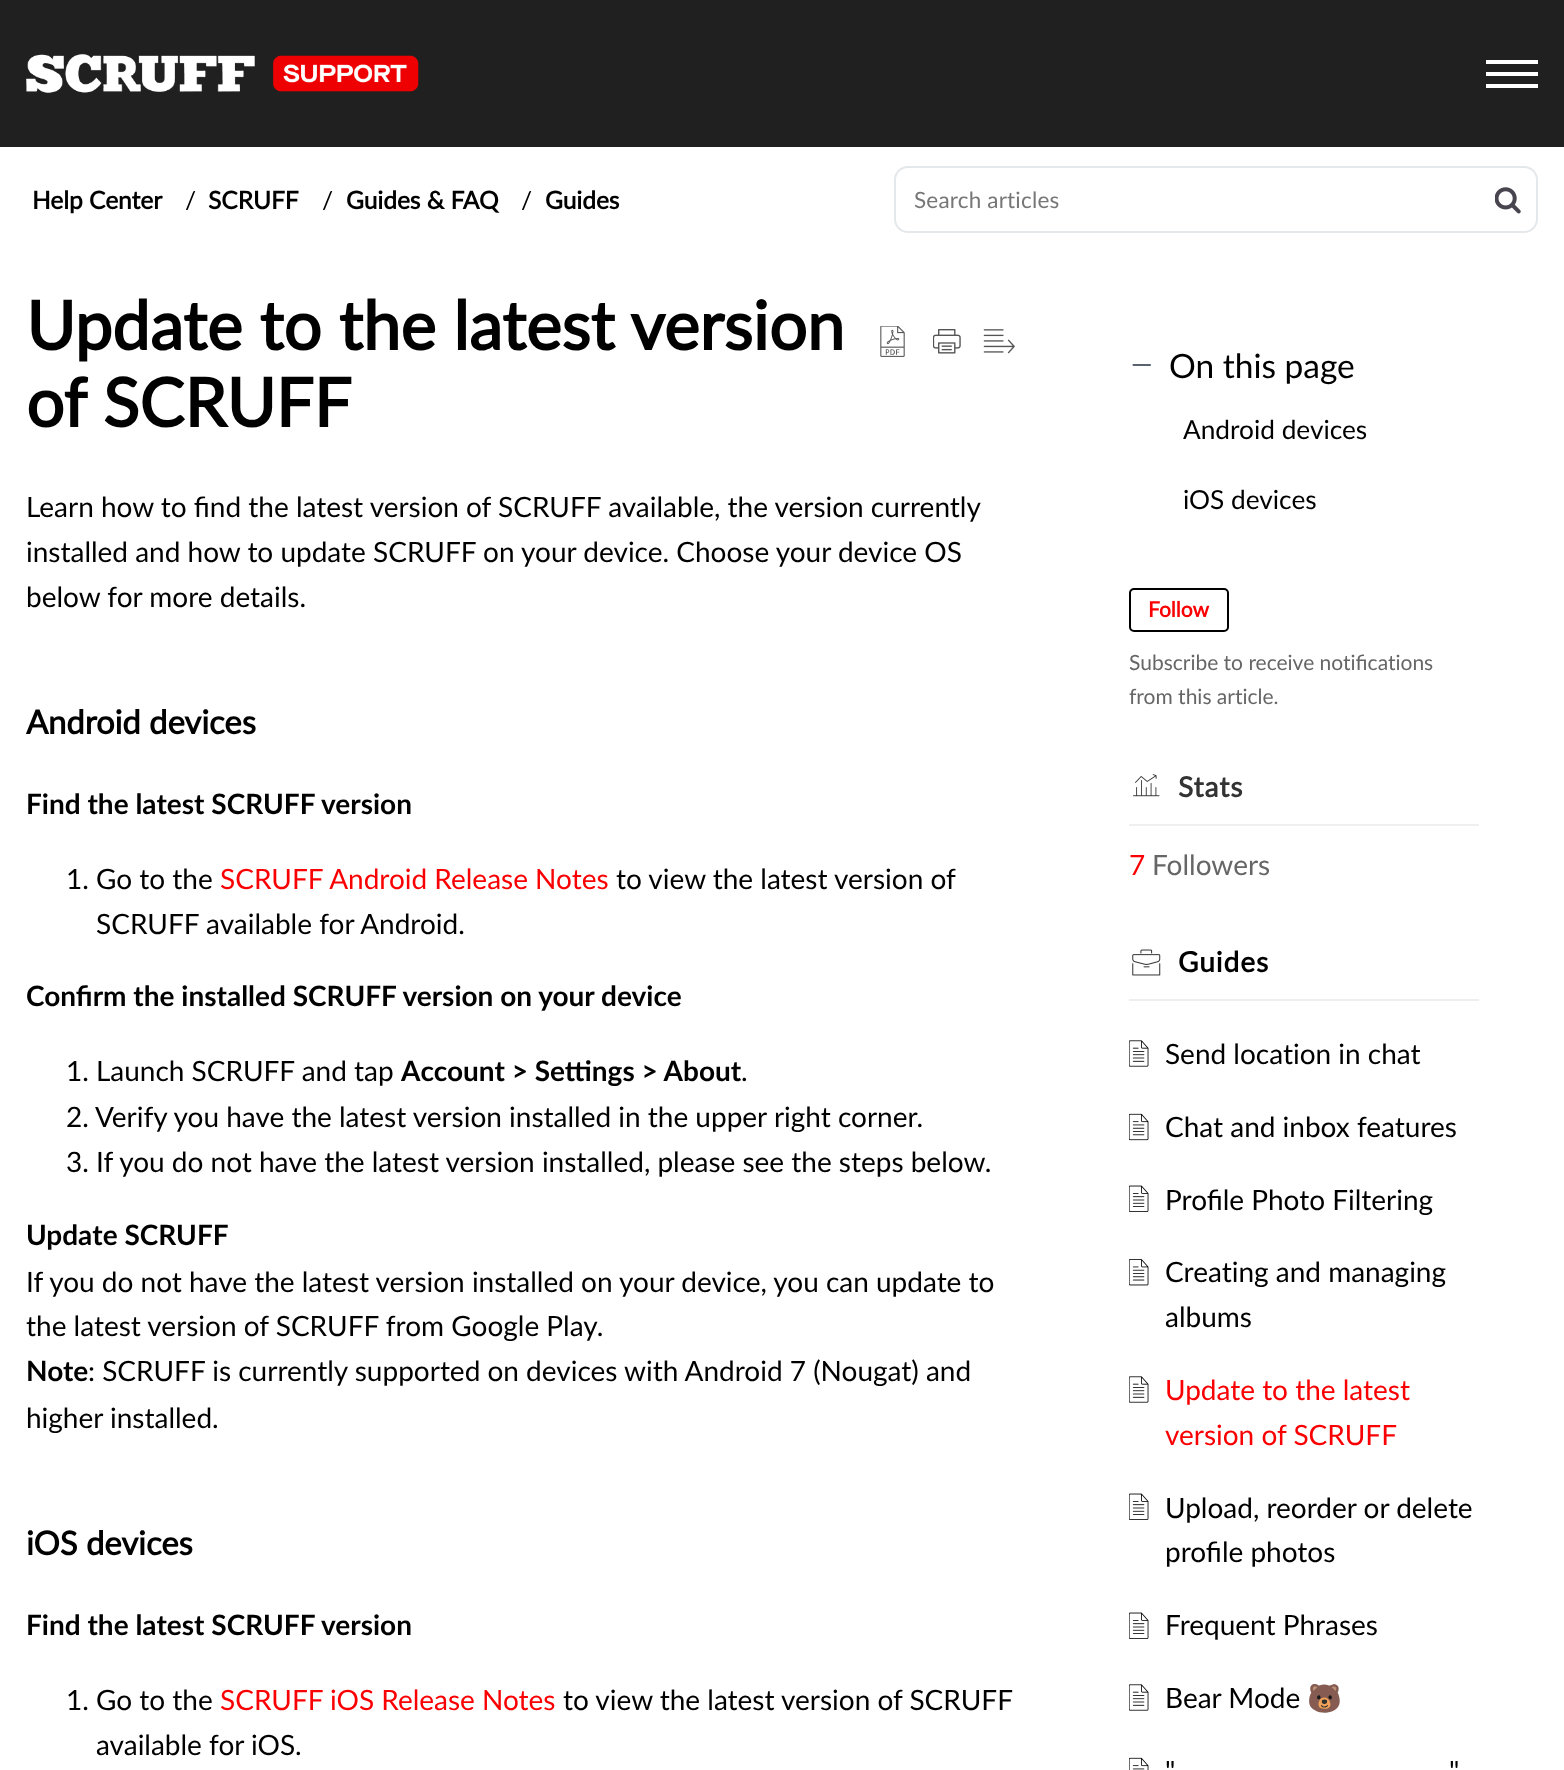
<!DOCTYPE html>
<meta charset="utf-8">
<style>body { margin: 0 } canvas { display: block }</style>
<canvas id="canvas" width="1564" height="1770"></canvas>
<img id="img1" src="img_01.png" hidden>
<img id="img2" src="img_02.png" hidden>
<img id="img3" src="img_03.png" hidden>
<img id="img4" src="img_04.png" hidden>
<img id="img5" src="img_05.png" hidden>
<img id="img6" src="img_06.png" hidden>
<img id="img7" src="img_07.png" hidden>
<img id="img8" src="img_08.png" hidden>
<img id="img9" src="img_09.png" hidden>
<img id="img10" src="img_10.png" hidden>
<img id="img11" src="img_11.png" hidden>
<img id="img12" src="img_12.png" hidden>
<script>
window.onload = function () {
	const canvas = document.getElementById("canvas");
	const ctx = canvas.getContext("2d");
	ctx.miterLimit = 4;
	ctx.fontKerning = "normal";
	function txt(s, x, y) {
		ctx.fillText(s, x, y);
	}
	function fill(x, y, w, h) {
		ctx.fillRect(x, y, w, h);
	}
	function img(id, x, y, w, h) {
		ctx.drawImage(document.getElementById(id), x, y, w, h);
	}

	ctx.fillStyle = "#FFFFFF";
	fill(0, 0, 1564, 1770);
	ctx.fillStyle = "#202020";
	fill(0, 0, 1564, 147);
	img("img1", 26, 54, 393, 39);
	ctx.fillStyle = "#FFFFFF";
	fill(1486, 72, 52, 4);
	fill(1486, 60, 52, 4);
	fill(1486, 84, 52, 4);
	ctx.beginPath();
	ctx.roundRect(895, 167, 642, 65, 13);
	ctx.strokeStyle = "#E5E8EA";
	ctx.lineWidth = 2;
	ctx.stroke();
	img("img2", 1495, 187, 26, 27);
	img("img3", 880, 326, 25, 31);
	img("img4", 933, 329, 28, 25);
	img("img5", 983, 329, 32, 25);
	ctx.beginPath();
	ctx.moveTo(1150, 365);
	ctx.lineTo(1133.5, 365);
	ctx.strokeStyle = "#5A616F";
	ctx.lineWidth = 2.1;
	ctx.lineCap = "round";
	ctx.lineJoin = "round";
	ctx.stroke();
	ctx.beginPath();
	ctx.roundRect(1130, 589, 98, 42, 4);
	ctx.strokeStyle = "#000000";
	ctx.lineWidth = 2;
	ctx.lineJoin = "miter";
	ctx.stroke();
	ctx.fillStyle = "#EFEFEF";
	fill(1129, 824, 350, 2);
	img("img6", 1133, 774, 27, 23);
	fill(1129, 999, 350, 2);
	img("img7", 1132, 949, 29, 27);
	img("img8", 1129, 1040, 20, 27);
	img("img9", 1129, 1113, 20, 28);
	img("img10", 1129, 1185, 20, 27);
	img("img11", 1129, 1259, 20, 27);
	img("img8", 1129, 1376, 20, 27);
	img("img10", 1129, 1493, 20, 27);
	img("img10", 1129, 1612, 20, 27);
	img("img8", 1129, 1684, 20, 27);
	img("img12", 1129, 1757, 20, 13);
	ctx.font = "bold 24.5px Lato";
	ctx.fillStyle = "#000000";
	txt("Help Center", 32, 209);
	ctx.font = "24.5px Lato";
	txt("/", 185, 209);
	ctx.font = "bold 24.5px Lato";
	txt("SCRUFF", 208, 209);
	ctx.font = "24.5px Lato";
	txt("/", 322, 209);
	ctx.font = "bold 24.5px Lato";
	txt("Guides & FAQ", 346, 209);
	ctx.font = "24.5px Lato";
	txt("/", 521, 209);
	ctx.font = "bold 24.5px Lato";
	txt("Guides", 545, 209);
	ctx.letterSpacing = "0.2px";
	ctx.font = "22.5px Lato";
	ctx.fillStyle = "#777777";
	txt("Search articles", 914, 208);
	ctx.letterSpacing = "0px";
	ctx.font = "bold 67.25px Lato";
	ctx.fillStyle = "#000000";
	txt("Update to the latest version", 26, 350);
	txt("of SCRUFF", 26, 427);
	ctx.font = "28px Lato";
	txt("Learn how to find the latest version of SCRUFF available, the version currently", 26, 517);
	txt("installed and how to update SCRUFF on your device. Choose your device OS", 26, 562);
	txt("below for more details.", 26, 607);
	ctx.font = "bold 32.75px Lato";
	txt("Android devices", 26, 734);
	ctx.font = "bold 28px 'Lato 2'";
	txt("Find the latest SCRUFF version", 26, 814);
	ctx.font = "28px Lato";
	txt("1. Go to the", 66, 889);
	ctx.fillStyle = "#FA0002";
	txt("SCRUFF Android Release Notes", 220, 889);
	ctx.fillStyle = "#000000";
	txt("to view the latest version of", 616, 889);
	txt("SCRUFF available for Android.", 96, 934);
	ctx.font = "bold 28px 'Lato 2'";
	txt("Confirm the installed SCRUFF version on your device", 26, 1006);
	ctx.font = "28px Lato";
	txt("1. Launch SCRUFF and tap", 66, 1081);
	ctx.font = "bold 28px 'Lato 2'";
	txt("Account > Settings > About", 401, 1081);
	ctx.font = "28px Lato";
	txt(".", 741, 1081);
	txt("2. Verify you have the latest version installed in the upper right corner.", 66, 1127);
	txt("3. If you do not have the latest version installed, please see the steps below.", 66, 1172);
	ctx.font = "bold 28px 'Lato 2'";
	txt("Update SCRUFF", 26, 1245);
	ctx.font = "28px Lato";
	txt("If you do not have the latest version installed on your device, you can update to", 26, 1292);
	txt("the latest version of SCRUFF from Google Play.", 26, 1336);
	ctx.font = "bold 28px 'Lato 2'";
	txt("Note", 26, 1381);
	ctx.font = "28px Lato";
	txt(": SCRUFF is currently supported on devices with Android 7 (Nougat) and", 88, 1381);
	txt("higher installed.", 26, 1428);
	ctx.font = "bold 32.75px Lato";
	txt("iOS devices", 26, 1555);
	ctx.font = "bold 28px 'Lato 2'";
	txt("Find the latest SCRUFF version", 26, 1635);
	ctx.font = "28px Lato";
	txt("1. Go to the", 66, 1710);
	ctx.fillStyle = "#FA0002";
	txt("SCRUFF iOS Release Notes", 220, 1710);
	ctx.fillStyle = "#000000";
	txt("to view the latest version of SCRUFF", 563, 1710);
	txt("available for iOS.", 96, 1755);
	ctx.font = "33.5px Lato";
	txt("On this page", 1169, 378);
	ctx.font = "26.25px Lato";
	txt("Android devices", 1183, 439);
	txt("iOS devices", 1183, 509);
	ctx.font = "bold 21px Lato";
	ctx.fillStyle = "#FA0002";
	txt("Follow", 1148, 617);
	ctx.font = "21px Lato";
	ctx.fillStyle = "#666666";
	txt("Subscribe to receive notifications", 1129, 670);
	txt("from this article.", 1129, 704);
	ctx.letterSpacing = "1px";
	ctx.font = "bold 28px Lato";
	ctx.fillStyle = "#333333";
	txt("Stats", 1178, 797);
	ctx.letterSpacing = "0px";
	ctx.font = "28px Lato";
	ctx.fillStyle = "#FA0002";
	txt("7", 1129, 875);
	ctx.fillStyle = "#666666";
	txt("Followers", 1152, 875);
	ctx.letterSpacing = "1px";
	ctx.font = "bold 28px Lato";
	ctx.fillStyle = "#000000";
	txt("Guides", 1178, 972);
	ctx.letterSpacing = "0px";
	ctx.font = "28px Lato";
	txt("Send location in chat", 1165, 1064);
	txt("Chat and inbox features", 1165, 1137);
	txt("Profile Photo Filtering", 1165, 1210);
	txt("Creating and managing", 1165, 1282);
	txt("albums", 1165, 1327);
	ctx.fillStyle = "#FA0002";
	txt("Update to the latest", 1165, 1400);
	txt("version of SCRUFF", 1165, 1445);
	ctx.fillStyle = "#000000";
	txt("Upload, reorder or delete", 1165, 1518);
	txt("profile photos", 1165, 1562);
	txt("Frequent Phrases", 1165, 1635);
	txt("Bear Mode", 1165, 1708);
	ctx.font = "28px Noto Color Emoji";
	txt("🐻", 1307, 1708);
	ctx.font = "28px Lato";
	txt("\"", 1165, 1781);
	txt("\"", 1449, 1781);
};
</script>
